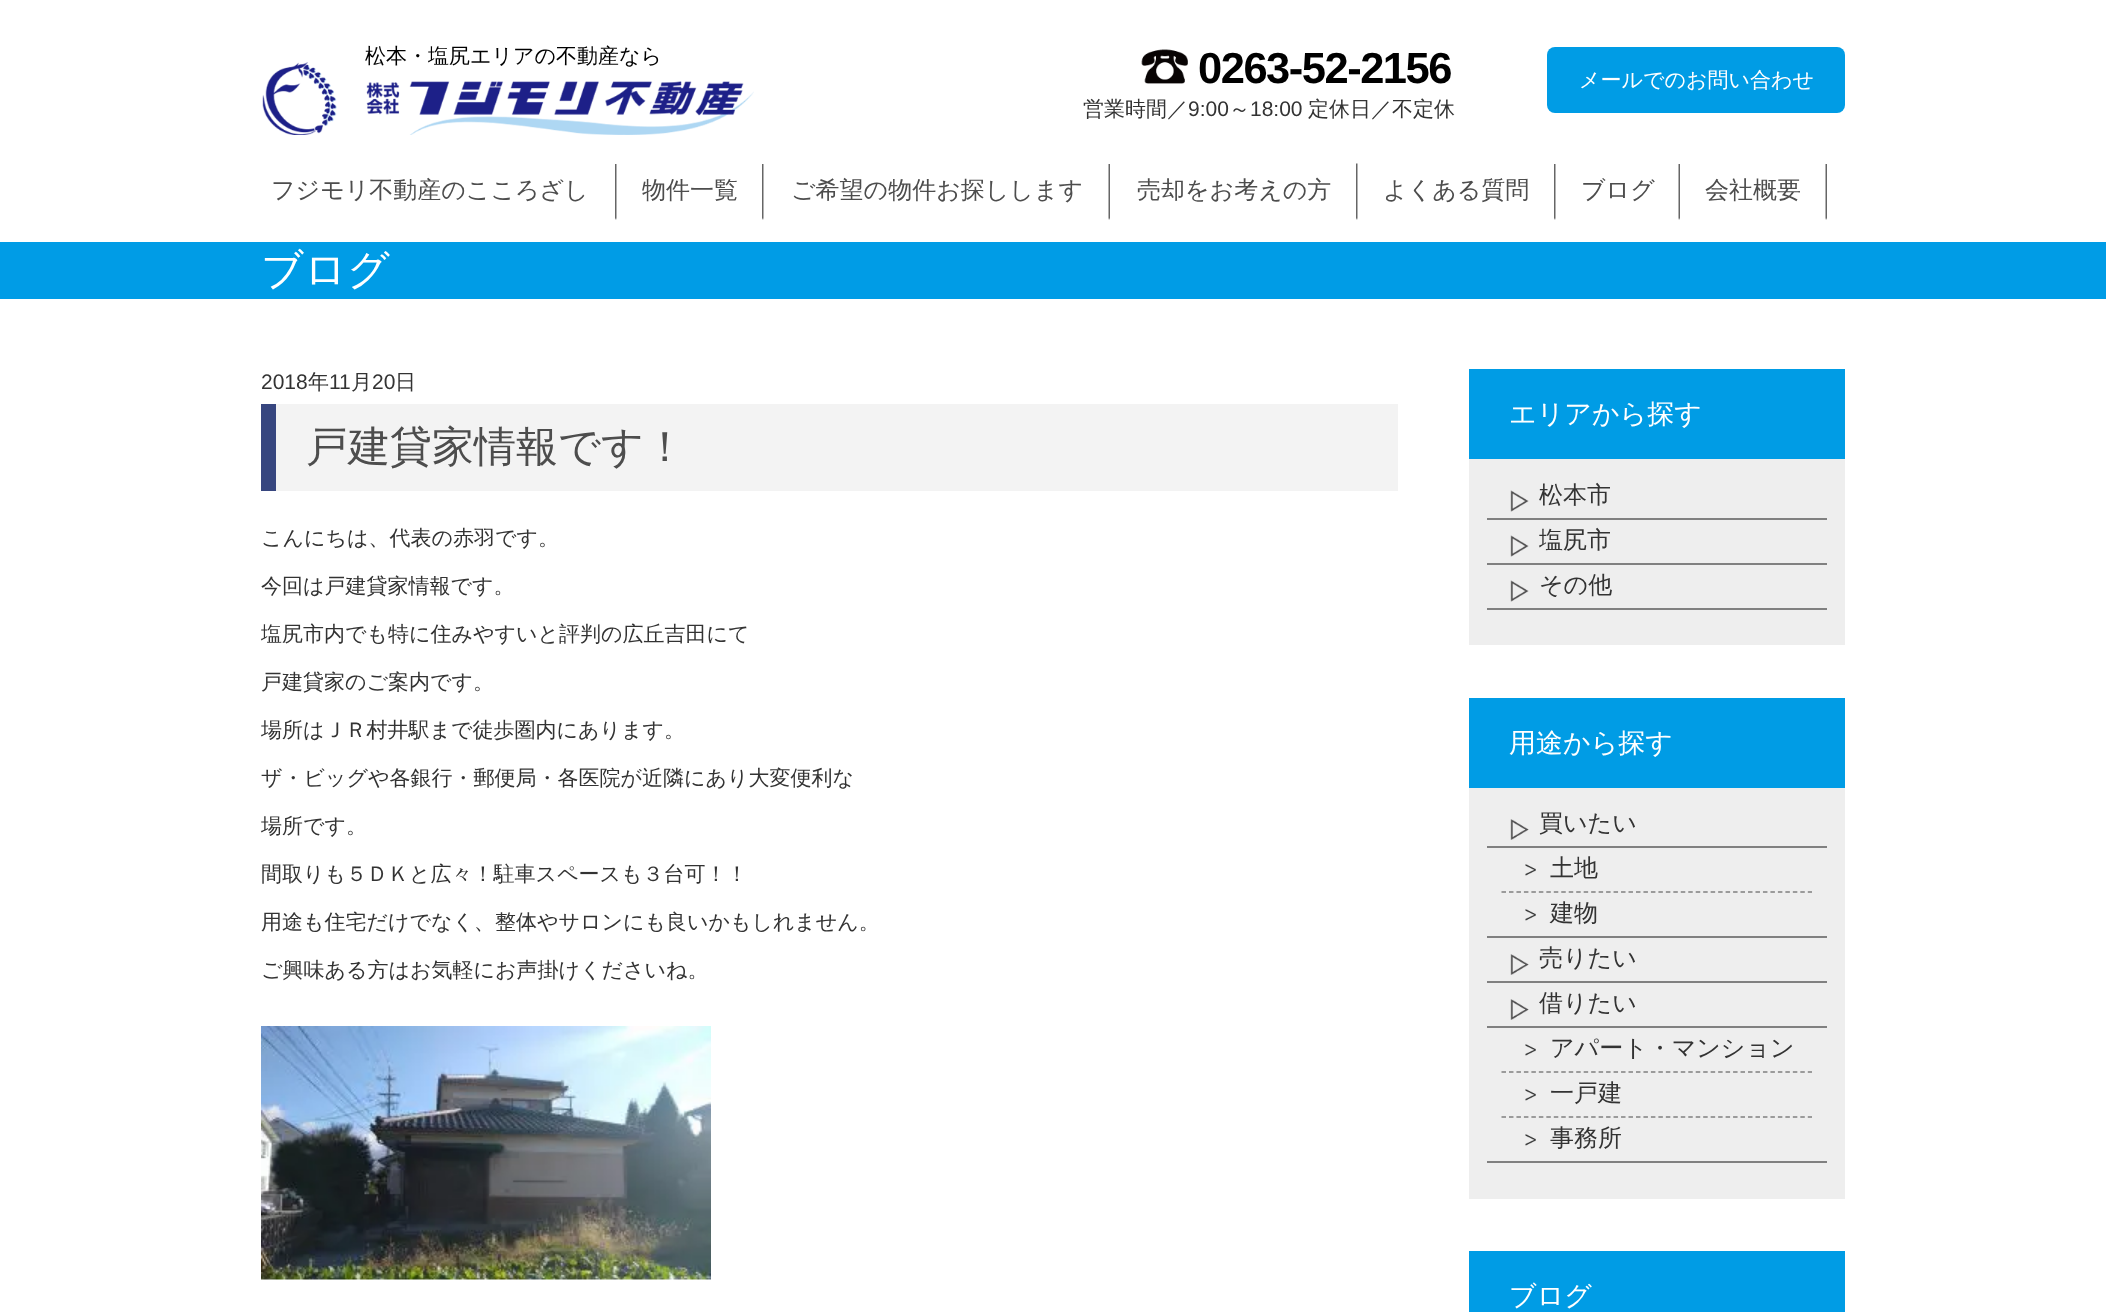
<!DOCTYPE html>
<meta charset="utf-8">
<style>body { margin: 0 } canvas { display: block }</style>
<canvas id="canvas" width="2106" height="1312"></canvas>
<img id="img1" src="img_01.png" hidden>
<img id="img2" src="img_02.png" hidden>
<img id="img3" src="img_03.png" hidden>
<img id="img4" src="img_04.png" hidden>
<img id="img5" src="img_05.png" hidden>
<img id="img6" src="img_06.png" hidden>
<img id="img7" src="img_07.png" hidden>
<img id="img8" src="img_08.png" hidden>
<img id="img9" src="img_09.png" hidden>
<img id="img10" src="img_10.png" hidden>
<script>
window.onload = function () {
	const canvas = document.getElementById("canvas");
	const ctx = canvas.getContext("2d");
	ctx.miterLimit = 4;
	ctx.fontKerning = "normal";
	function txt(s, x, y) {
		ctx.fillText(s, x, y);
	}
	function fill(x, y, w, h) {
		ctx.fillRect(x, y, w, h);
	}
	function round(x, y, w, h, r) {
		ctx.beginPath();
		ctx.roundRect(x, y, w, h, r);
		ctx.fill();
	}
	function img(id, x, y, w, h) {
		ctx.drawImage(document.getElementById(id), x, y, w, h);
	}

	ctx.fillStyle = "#FFFFFF";
	fill(0, 0, 2106, 1312);
	img("img1", 262, 62, 492, 73);
	img("img2", 1141, 49, 47, 35);
	ctx.fillStyle = "#009CE5";
	round(1547, 47, 298, 66, 8);
	img("img3", 615, 164, 2, 56);
	img("img3", 762, 164, 2, 56);
	img("img4", 1108, 164, 2, 56);
	img("img5", 1356, 163, 2, 57);
	img("img3", 1554, 164, 2, 56);
	img("img4", 1678, 164, 2, 56);
	img("img4", 1825, 164, 2, 56);
	ctx.fillStyle = "#009CE6";
	fill(0, 242, 2106, 57);
	ctx.fillStyle = "#F3F3F3";
	fill(276, 404, 1122, 87);
	ctx.fillStyle = "#37467F";
	fill(261, 404, 15, 87);
	img("img6", 261, 1026, 450, 254);
	ctx.fillStyle = "#EEEEEE";
	fill(1469, 459, 376, 186);
	ctx.fillStyle = "#009CE5";
	fill(1469, 369, 376, 90);
	ctx.fillStyle = "#808080";
	fill(1487, 518, 340, 2);
	img("img7", 1510, 490, 19, 22);
	fill(1487, 563, 340, 2);
	img("img7", 1510, 535, 19, 22);
	fill(1487, 608, 340, 2);
	img("img7", 1510, 580, 19, 22);
	ctx.fillStyle = "#EEEEEE";
	fill(1469, 788, 376, 411);
	ctx.fillStyle = "#009CE5";
	fill(1469, 698, 376, 90);
	ctx.fillStyle = "#808080";
	fill(1487, 936, 340, 2);
	img("img8", 1510, 819, 19, 21);
	fill(1487, 846, 340, 2);
	ctx.beginPath();
	ctx.moveTo(1501.5, 892);
	ctx.lineTo(1812, 892);
	ctx.strokeStyle = "#808080";
	ctx.lineWidth = 1.5;
	ctx.setLineDash([4.5, 2.97]);
	ctx.stroke();
	img("img9", 1525, 864, 11, 12);
	img("img9", 1525, 909, 11, 12);
	fill(1487, 981, 340, 2);
	img("img10", 1510, 954, 19, 21);
	fill(1487, 1161, 340, 2);
	img("img8", 1510, 999, 19, 21);
	fill(1487, 1026, 340, 2);
	ctx.beginPath();
	ctx.moveTo(1501.5, 1072);
	ctx.lineTo(1812, 1072);
	ctx.stroke();
	img("img9", 1525, 1044, 11, 12);
	ctx.beginPath();
	ctx.moveTo(1501.5, 1117);
	ctx.lineTo(1812, 1117);
	ctx.stroke();
	img("img9", 1525, 1089, 11, 12);
	img("img9", 1525, 1134, 11, 12);
	ctx.fillStyle = "#009CE5";
	fill(1469, 1251, 376, 61);
	ctx.font = "500 21px WenQuanYi Zen Hei";
	ctx.fillStyle = "#000000";
	txt("松本・塩尻エリアの不動産なら", 365, 63);
	ctx.letterSpacing = "-1.5px";
	ctx.font = "bold 43.5px Liberation Sans";
	txt("0263-52-2156", 1198, 83);
	ctx.letterSpacing = "0px";
	ctx.font = "500 21px WenQuanYi Zen Hei";
	ctx.fillStyle = "#FFFFFF";
	txt("メールでのお問い合わせ", 1579, 87);
	ctx.fillStyle = "#333333";
	txt("営業時間／", 1083, 116);
	ctx.font = "21px Liberation Sans";
	txt("9:00", 1188, 116);
	ctx.font = "500 21px WenQuanYi Zen Hei";
	txt("～", 1229, 116);
	ctx.font = "21px Liberation Sans";
	txt("18:00", 1250, 116);
	ctx.font = "500 21px WenQuanYi Zen Hei";
	txt("定休日／不定休", 1308, 116);
	ctx.font = "500 24px WenQuanYi Zen Hei";
	ctx.fillStyle = "#4D4D4D";
	txt("フジモリ不動産のこころざし", 271, 198);
	txt("物件一覧", 642, 198);
	txt("ご希望の物件お探しします", 791, 198);
	txt("売却をお考えの方", 1137, 198);
	txt("よくある質問", 1383, 198);
	txt("ブログ", 1581, 198);
	txt("会社概要", 1705, 198);
	ctx.font = "500 42px WenQuanYi Zen Hei";
	ctx.fillStyle = "#FFFFFF";
	txt("ブログ", 261, 284);
	ctx.font = "21px Liberation Sans";
	ctx.fillStyle = "#333333";
	txt("2018", 261, 389);
	ctx.font = "500 21px WenQuanYi Zen Hei";
	txt("年", 308, 389);
	ctx.font = "21px Liberation Sans";
	txt("11", 329, 389);
	ctx.font = "500 21px WenQuanYi Zen Hei";
	txt("月", 351, 389);
	ctx.font = "21px Liberation Sans";
	txt("20", 372, 389);
	ctx.font = "500 21px WenQuanYi Zen Hei";
	txt("日", 395, 389);
	ctx.font = "500 42px WenQuanYi Zen Hei";
	ctx.fillStyle = "#4D4D4D";
	txt("戸建貸家情報です！", 306, 461);
	ctx.font = "500 21px WenQuanYi Zen Hei";
	ctx.fillStyle = "#333333";
	txt("こんにちは、代表の赤羽です。", 261, 545);
	txt("今回は戸建貸家情報です。", 261, 593);
	txt("塩尻市内でも特に住みやすいと評判の広丘吉田にて", 261, 641);
	txt("戸建貸家のご案内です。", 261, 689);
	txt("場所はＪＲ村井駅まで徒歩圏内にあります。", 261, 737);
	txt("ザ・ビッグや各銀行・郵便局・各医院が近隣にあり大変便利な", 261, 785);
	txt("場所です。", 261, 833);
	txt("間取りも５ＤＫと広々！駐車スペースも３台可！！", 261, 881);
	txt("用途も住宅だけでなく、整体やサロンにも良いかもしれません。", 261, 929);
	txt("ご興味ある方はお気軽にお声掛けくださいね。", 261, 977);
	ctx.font = "500 27px WenQuanYi Zen Hei";
	ctx.fillStyle = "#FFFFFF";
	txt("エリアから探す", 1509, 423);
	ctx.font = "500 24px WenQuanYi Zen Hei";
	ctx.fillStyle = "#333333";
	txt("松本市", 1539, 503);
	txt("塩尻市", 1539, 548);
	txt("その他", 1539, 593);
	ctx.font = "500 27px WenQuanYi Zen Hei";
	ctx.fillStyle = "#FFFFFF";
	txt("用途から探す", 1509, 752);
	ctx.font = "500 24px WenQuanYi Zen Hei";
	ctx.fillStyle = "#333333";
	txt("買いたい", 1539, 831);
	txt("土地", 1550, 876);
	txt("建物", 1550, 921);
	txt("売りたい", 1539, 966);
	txt("借りたい", 1539, 1011);
	txt("アパート・マンション", 1550, 1056);
	txt("一戸建", 1550, 1101);
	txt("事務所", 1550, 1146);
	ctx.font = "500 27px WenQuanYi Zen Hei";
	ctx.fillStyle = "#FFFFFF";
	txt("ブログ", 1509, 1305);
};
</script>
